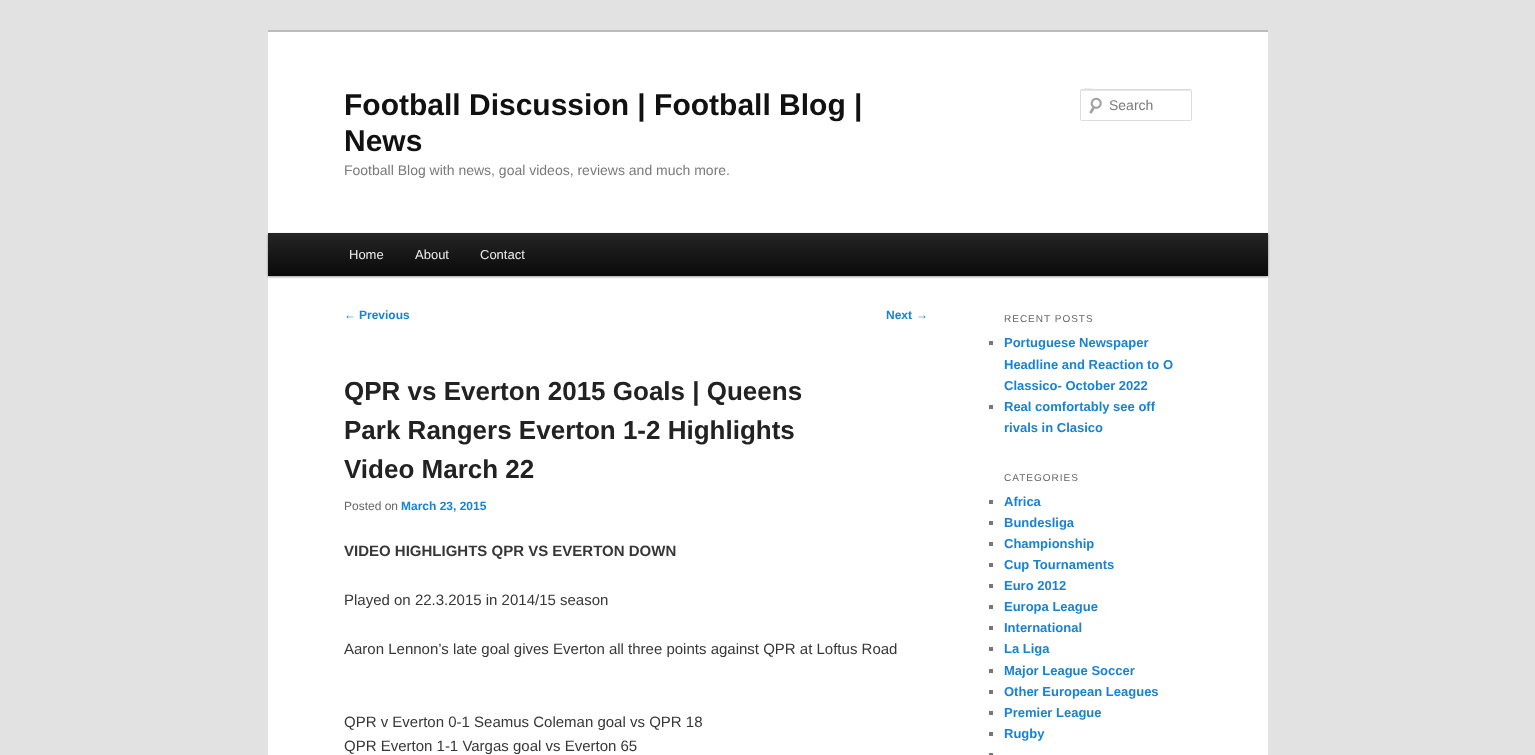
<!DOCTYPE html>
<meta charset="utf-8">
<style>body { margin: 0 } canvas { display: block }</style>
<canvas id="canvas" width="1535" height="755"></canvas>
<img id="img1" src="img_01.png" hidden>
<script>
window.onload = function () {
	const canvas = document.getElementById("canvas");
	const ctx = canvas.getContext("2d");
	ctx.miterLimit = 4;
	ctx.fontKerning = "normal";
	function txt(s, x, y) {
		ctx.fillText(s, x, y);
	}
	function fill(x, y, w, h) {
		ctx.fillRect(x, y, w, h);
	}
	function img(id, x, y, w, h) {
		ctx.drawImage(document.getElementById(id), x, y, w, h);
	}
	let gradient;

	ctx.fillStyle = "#E2E2E2";
	fill(0, 0, 1535, 755);
	ctx.fillStyle = "#FFFFFF";
	fill(268, 32, 1000, 723);
	ctx.fillStyle = "#BBBBBB";
	fill(268, 30, 1000, 2);
	img("img1", 1089, 97, 13, 17);
	ctx.fillStyle = "#E6E6E6";
	ctx.beginPath();
	ctx.moveTo(1082, 91);
	ctx.lineTo(1191, 91);
	ctx.lineTo(1191, 92);
	ctx.lineTo(1190, 90);
	ctx.lineTo(1100, 90);
	ctx.bezierCurveTo(1096, 90, 1081, 85, 1081, 92);
	ctx.bezierCurveTo(1081, 91, 1081, 91, 1082, 91);
	ctx.closePath();
	ctx.fill();
	ctx.beginPath();
	ctx.roundRect(1080.5, 89.5, 111, 31, 1.5);
	ctx.strokeStyle = "#DDDDDD";
	ctx.stroke();
	ctx.fillStyle = "rgba(0, 0, 0, 0.4)";
	ctx.filter = "blur(1px)";
	ctx.beginPath();
	ctx.rect(268, 234, 1000, 43);
	ctx.fill();
	ctx.filter = "none";
	gradient = ctx.createLinearGradient(768, 233, 768, 276);
	gradient.addColorStop(0, "#252525");
	gradient.addColorStop(1, "#0A0A0A");
	ctx.fillStyle = gradient;
	fill(268, 233, 1000, 43);
	ctx.fillStyle = "#777777";
	fill(989, 341, 4, 4);
	fill(989, 405, 4, 4);
	fill(989, 500, 4, 4);
	fill(989, 521, 4, 4);
	fill(989, 542, 4, 4);
	fill(989, 563, 4, 4);
	fill(989, 584, 4, 4);
	fill(989, 605, 4, 4);
	fill(989, 626, 4, 4);
	fill(989, 647, 4, 4);
	fill(989, 669, 4, 4);
	fill(989, 690, 4, 4);
	fill(989, 711, 4, 4);
	fill(989, 732, 4, 4);
	fill(989, 753, 4, 2);
	ctx.font = "bold 30px Liberation Sans";
	ctx.fillStyle = "#111111";
	txt("Football Discussion | Football Blog |", 344, 115);
	txt("News", 344, 151);
	ctx.font = "14px Liberation Sans";
	ctx.fillStyle = "#7A7A7A";
	txt("Football Blog with news, goal videos, reviews and much more.", 344, 175);
	txt("Search", 1109, 110);
	ctx.font = "13px Liberation Sans";
	ctx.fillStyle = "#EEEEEE";
	txt("Home", 349, 259);
	txt("About", 415, 259);
	txt("Contact", 480, 259);
	ctx.font = "12px Liberation Sans";
	ctx.fillStyle = "#1982D1";
	txt("←", 344, 319);
	ctx.font = "bold 12px Liberation Sans";
	txt("Previous", 359, 319);
	txt("Next", 886, 319);
	ctx.font = "12px Liberation Sans";
	txt("→", 916, 319);
	ctx.font = "bold 26px Liberation Sans";
	ctx.fillStyle = "#222222";
	txt("QPR vs Everton 2015 Goals | Queens", 344, 400);
	txt("Park Rangers Everton 1-2 Highlights", 344, 439);
	txt("Video March 22", 344, 478);
	ctx.font = "12px Liberation Sans";
	ctx.fillStyle = "#666666";
	txt("Posted on", 344, 510);
	ctx.font = "bold 12px Liberation Sans";
	ctx.fillStyle = "#1982D1";
	txt("March 23, 2015", 401, 510);
	ctx.font = "bold 15px Liberation Sans";
	ctx.fillStyle = "#373737";
	txt("VIDEO HIGHLIGHTS QPR VS EVERTON DOWN", 344, 556);
	ctx.font = "15px Liberation Sans";
	txt("Played on 22.3.2015 in 2014/15 season", 344, 605);
	txt("Aaron Lennon’s late goal gives Everton all three points against QPR at Loftus Road", 344, 654);
	txt("QPR v Everton 0-1 Seamus Coleman goal vs QPR 18", 344, 727);
	txt("QPR Everton 1-1 Vargas goal vs Everton 65", 344, 751);
	ctx.letterSpacing = "1px";
	ctx.font = "10px Liberation Sans";
	ctx.fillStyle = "#666666";
	txt("RECENT POSTS", 1004, 322);
	ctx.letterSpacing = "0px";
	ctx.font = "bold 13px Liberation Sans";
	ctx.fillStyle = "#1982D1";
	txt("Portuguese Newspaper", 1004, 347);
	txt("Headline and Reaction to O", 1004, 369);
	txt("Classico- October 2022", 1004, 390);
	txt("Real comfortably see off", 1004, 411);
	txt("rivals in Clasico", 1004, 432);
	ctx.letterSpacing = "1px";
	ctx.font = "10px Liberation Sans";
	ctx.fillStyle = "#666666";
	txt("CATEGORIES", 1004, 481);
	ctx.letterSpacing = "0px";
	ctx.font = "bold 13px Liberation Sans";
	ctx.fillStyle = "#1982D1";
	txt("Africa", 1004, 506);
	txt("Bundesliga", 1004, 527);
	txt("Championship", 1004, 548);
	txt("Cup Tournaments", 1004, 569);
	txt("Euro 2012", 1004, 590);
	txt("Europa League", 1004, 611);
	txt("International", 1004, 632);
	txt("La Liga", 1004, 653);
	txt("Major League Soccer", 1004, 675);
	txt("Other European Leagues", 1004, 696);
	txt("Premier League", 1004, 717);
	txt("Rugby", 1004, 738);
};
</script>
